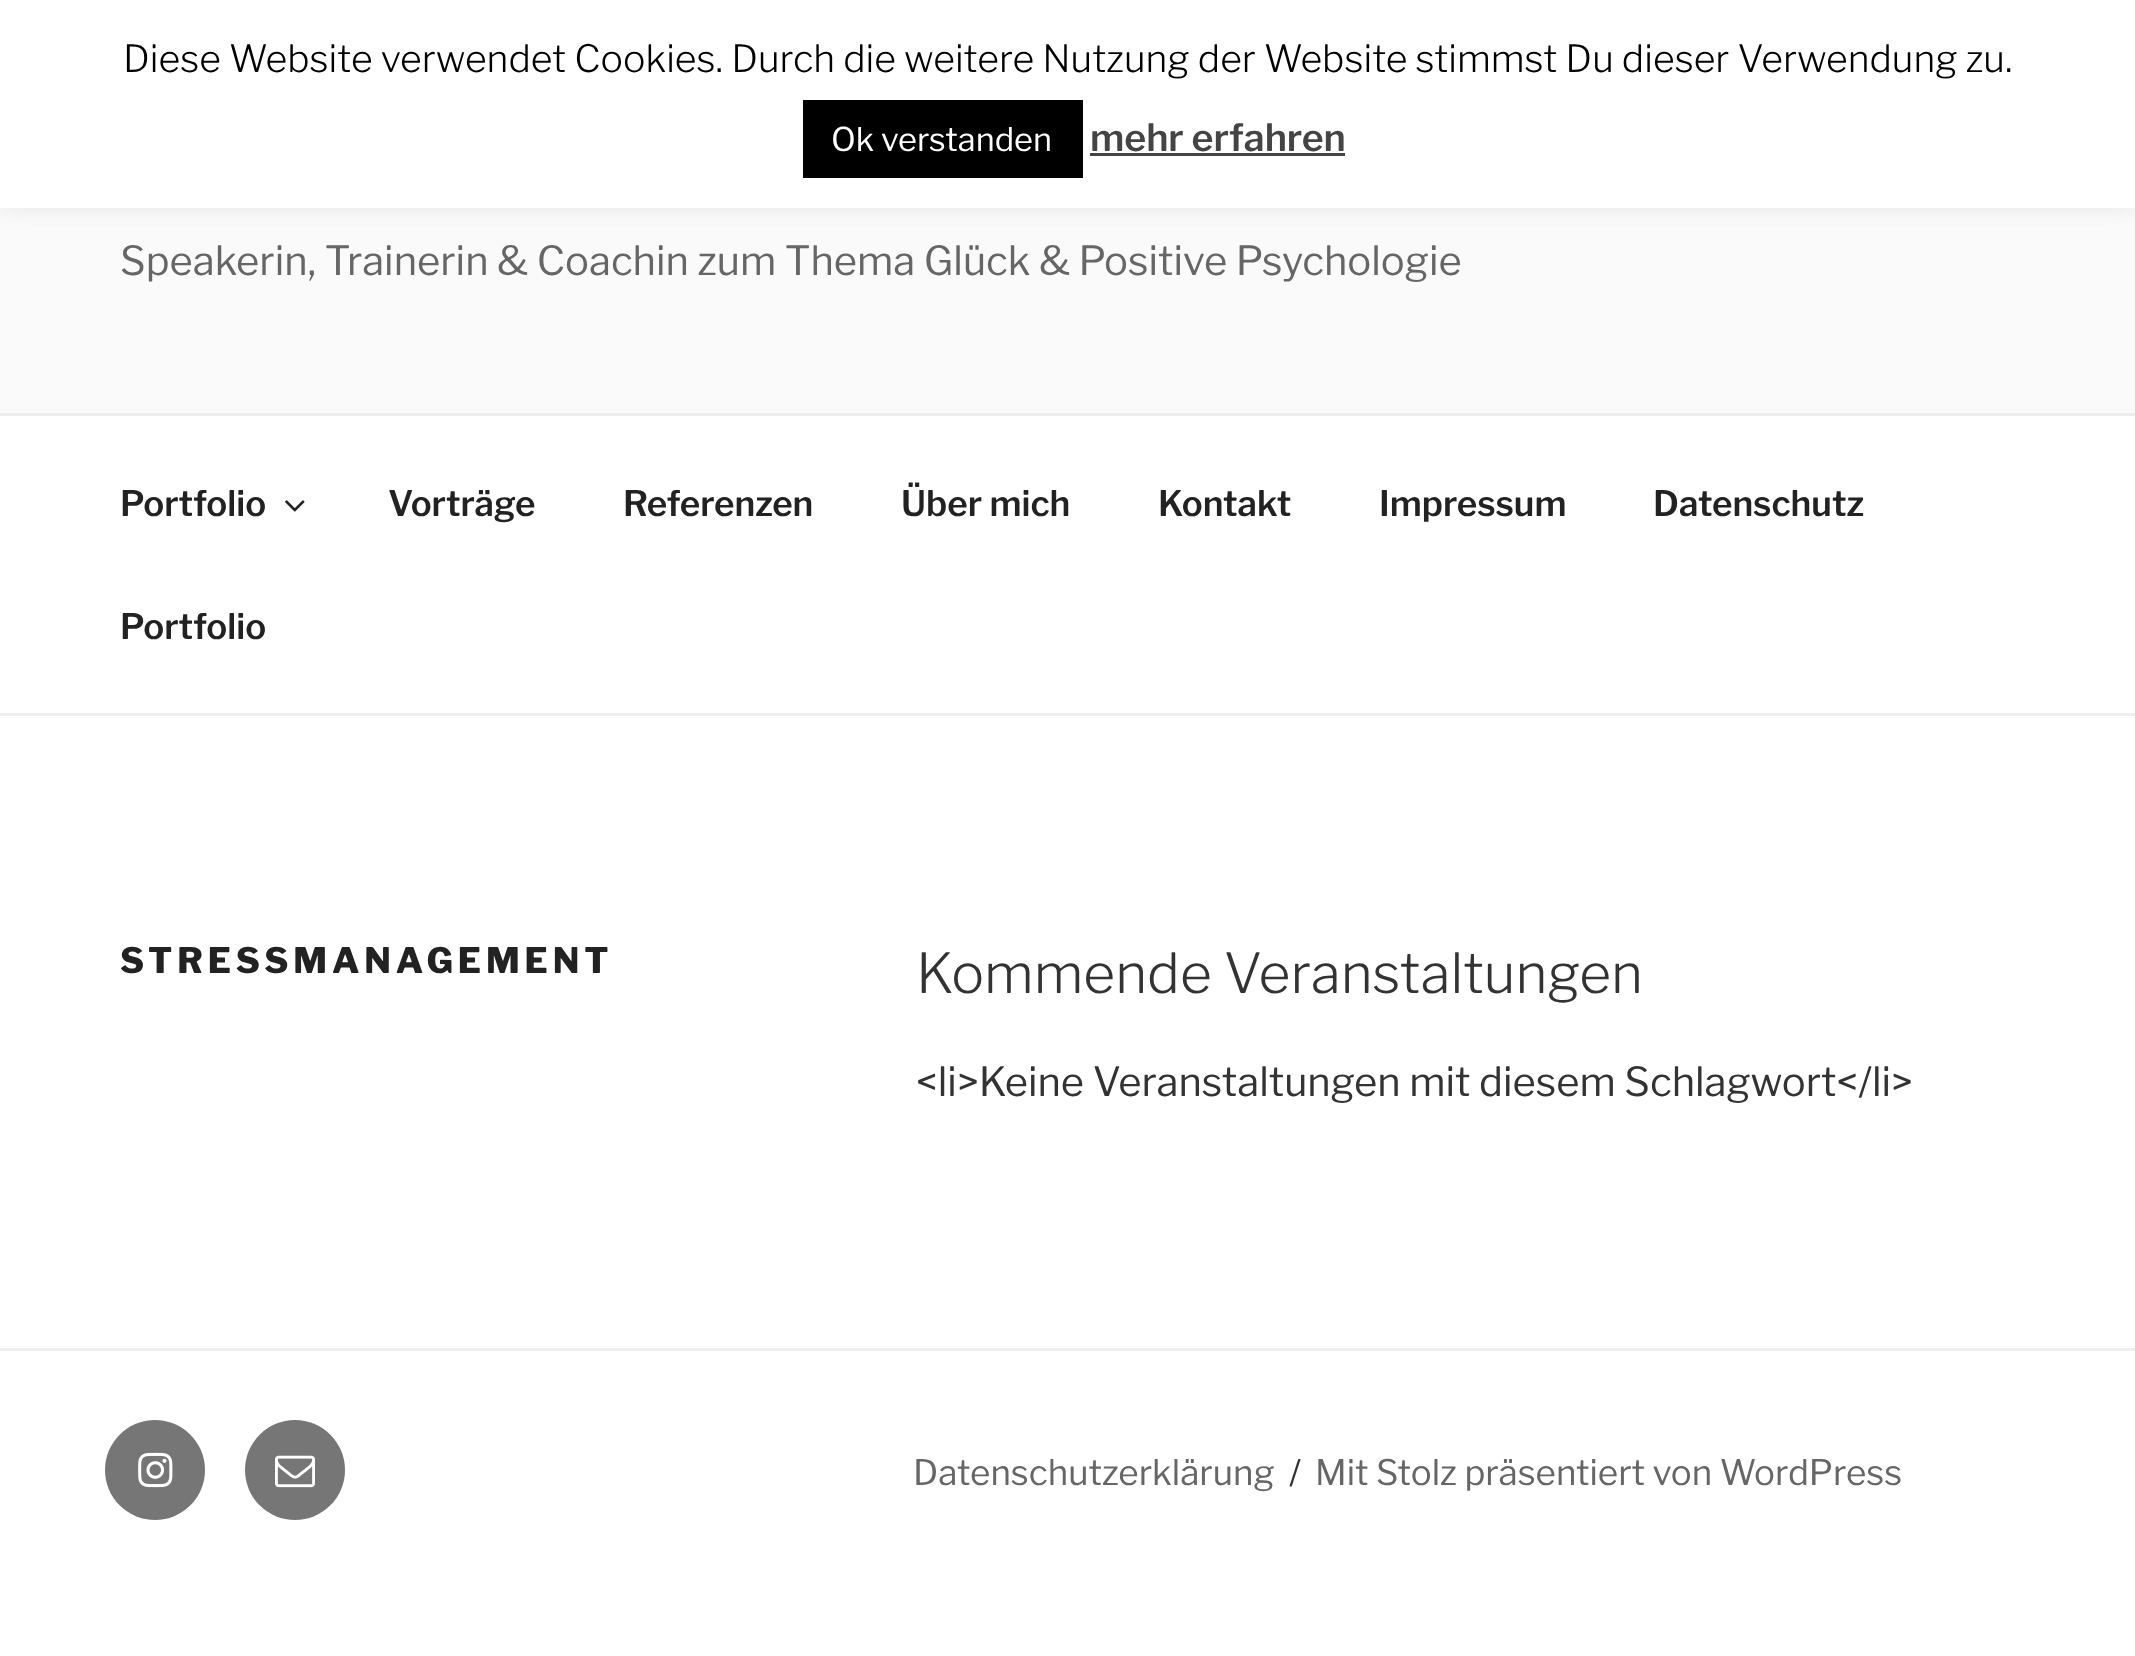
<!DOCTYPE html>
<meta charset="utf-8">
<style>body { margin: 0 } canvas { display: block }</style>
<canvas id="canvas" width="2135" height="1656"></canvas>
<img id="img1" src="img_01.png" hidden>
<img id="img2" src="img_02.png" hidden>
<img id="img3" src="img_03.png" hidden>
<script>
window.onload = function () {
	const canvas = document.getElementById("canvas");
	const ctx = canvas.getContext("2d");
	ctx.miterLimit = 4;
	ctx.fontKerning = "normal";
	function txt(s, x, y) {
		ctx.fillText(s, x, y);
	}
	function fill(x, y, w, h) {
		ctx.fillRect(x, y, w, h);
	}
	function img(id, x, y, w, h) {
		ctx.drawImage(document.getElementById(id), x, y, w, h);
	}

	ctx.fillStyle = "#FFFFFF";
	fill(0, 0, 2135, 1656);
	ctx.fillStyle = "#FAFAFA";
	fill(0, 208, 2135, 205);
	ctx.fillStyle = "rgba(172, 171, 171, 0.3)";
	ctx.filter = "blur(12.5px)";
	ctx.beginPath();
	ctx.rect(0, -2, 2135, 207);
	ctx.fill();
	ctx.filter = "none";
	ctx.fillStyle = "#FFFFFF";
	fill(0, 0, 2135, 208);
	ctx.fillStyle = "#000000";
	fill(803, 100, 280, 78);
	ctx.fillStyle = "#444444";
	fill(1090, 153, 255, 3);
	ctx.fillStyle = "#EEEEEE";
	fill(0, 413, 2135, 3);
	fill(0, 713, 2135, 3);
	img("img1", 285, 500, 20, 12);
	fill(0, 1348, 2135, 3);
	ctx.fillStyle = "#767676";
	ctx.beginPath();
	ctx.arc(155, 1470, 50, 0, Math.PI * 2);
	ctx.fill();
	img("img2", 138, 1452, 35, 36);
	ctx.beginPath();
	ctx.arc(295, 1470, 50, 0, Math.PI * 2);
	ctx.fill();
	img("img3", 275, 1455, 40, 33);
	ctx.font = "100 37.5px 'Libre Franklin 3'";
	ctx.fillStyle = "#000000";
	txt("Diese Website verwendet Cookies. Durch die weitere Nutzung der Website stimmst Du dieser Verwendung zu.", 123, 72);
	ctx.font = "100 32.5px 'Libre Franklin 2'";
	ctx.fillStyle = "#FFFFFF";
	txt("Ok verstanden", 831, 151);
	ctx.font = "100 37.5px 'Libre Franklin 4'";
	ctx.fillStyle = "#444444";
	txt("mehr erfahren", 1090, 151);
	ctx.font = "100 40px 'Libre Franklin 2'";
	ctx.fillStyle = "#666666";
	txt("Speakerin, Trainerin & Coachin zum Thema Glück & Positive Psychologie", 120, 275);
	ctx.font = "100 35px 'Libre Franklin 4'";
	ctx.fillStyle = "#222222";
	txt("Portfolio", 120, 516);
	txt("Vorträge", 388, 516);
	txt("Referenzen", 623, 516);
	txt("Über mich", 901, 516);
	txt("Kontakt", 1158, 516);
	txt("Impressum", 1379, 516);
	txt("Datenschutz", 1653, 516);
	txt("Portfolio", 120, 639);
	ctx.letterSpacing = "4.9px";
	ctx.font = "100 35px Libre Franklin";
	txt("STRESSMANAGEMENT", 120, 973);
	ctx.letterSpacing = "0px";
	ctx.font = "100 55px 'Libre Franklin 3'";
	ctx.fillStyle = "#333333";
	txt("Kommende Veranstaltungen", 916, 993);
	ctx.font = "100 40px 'Libre Franklin 2'";
	txt("<li>Keine Veranstaltungen mit diesem Schlagwort<\/li>", 916, 1096);
	ctx.font = "100 35px 'Libre Franklin 2'";
	ctx.fillStyle = "#666666";
	txt("Datenschutzerklärung", 913, 1485);
	ctx.fillStyle = "#333333";
	txt("/", 1289, 1485);
	ctx.fillStyle = "#666666";
	txt("Mit Stolz präsentiert von WordPress", 1315, 1485);
};
</script>
